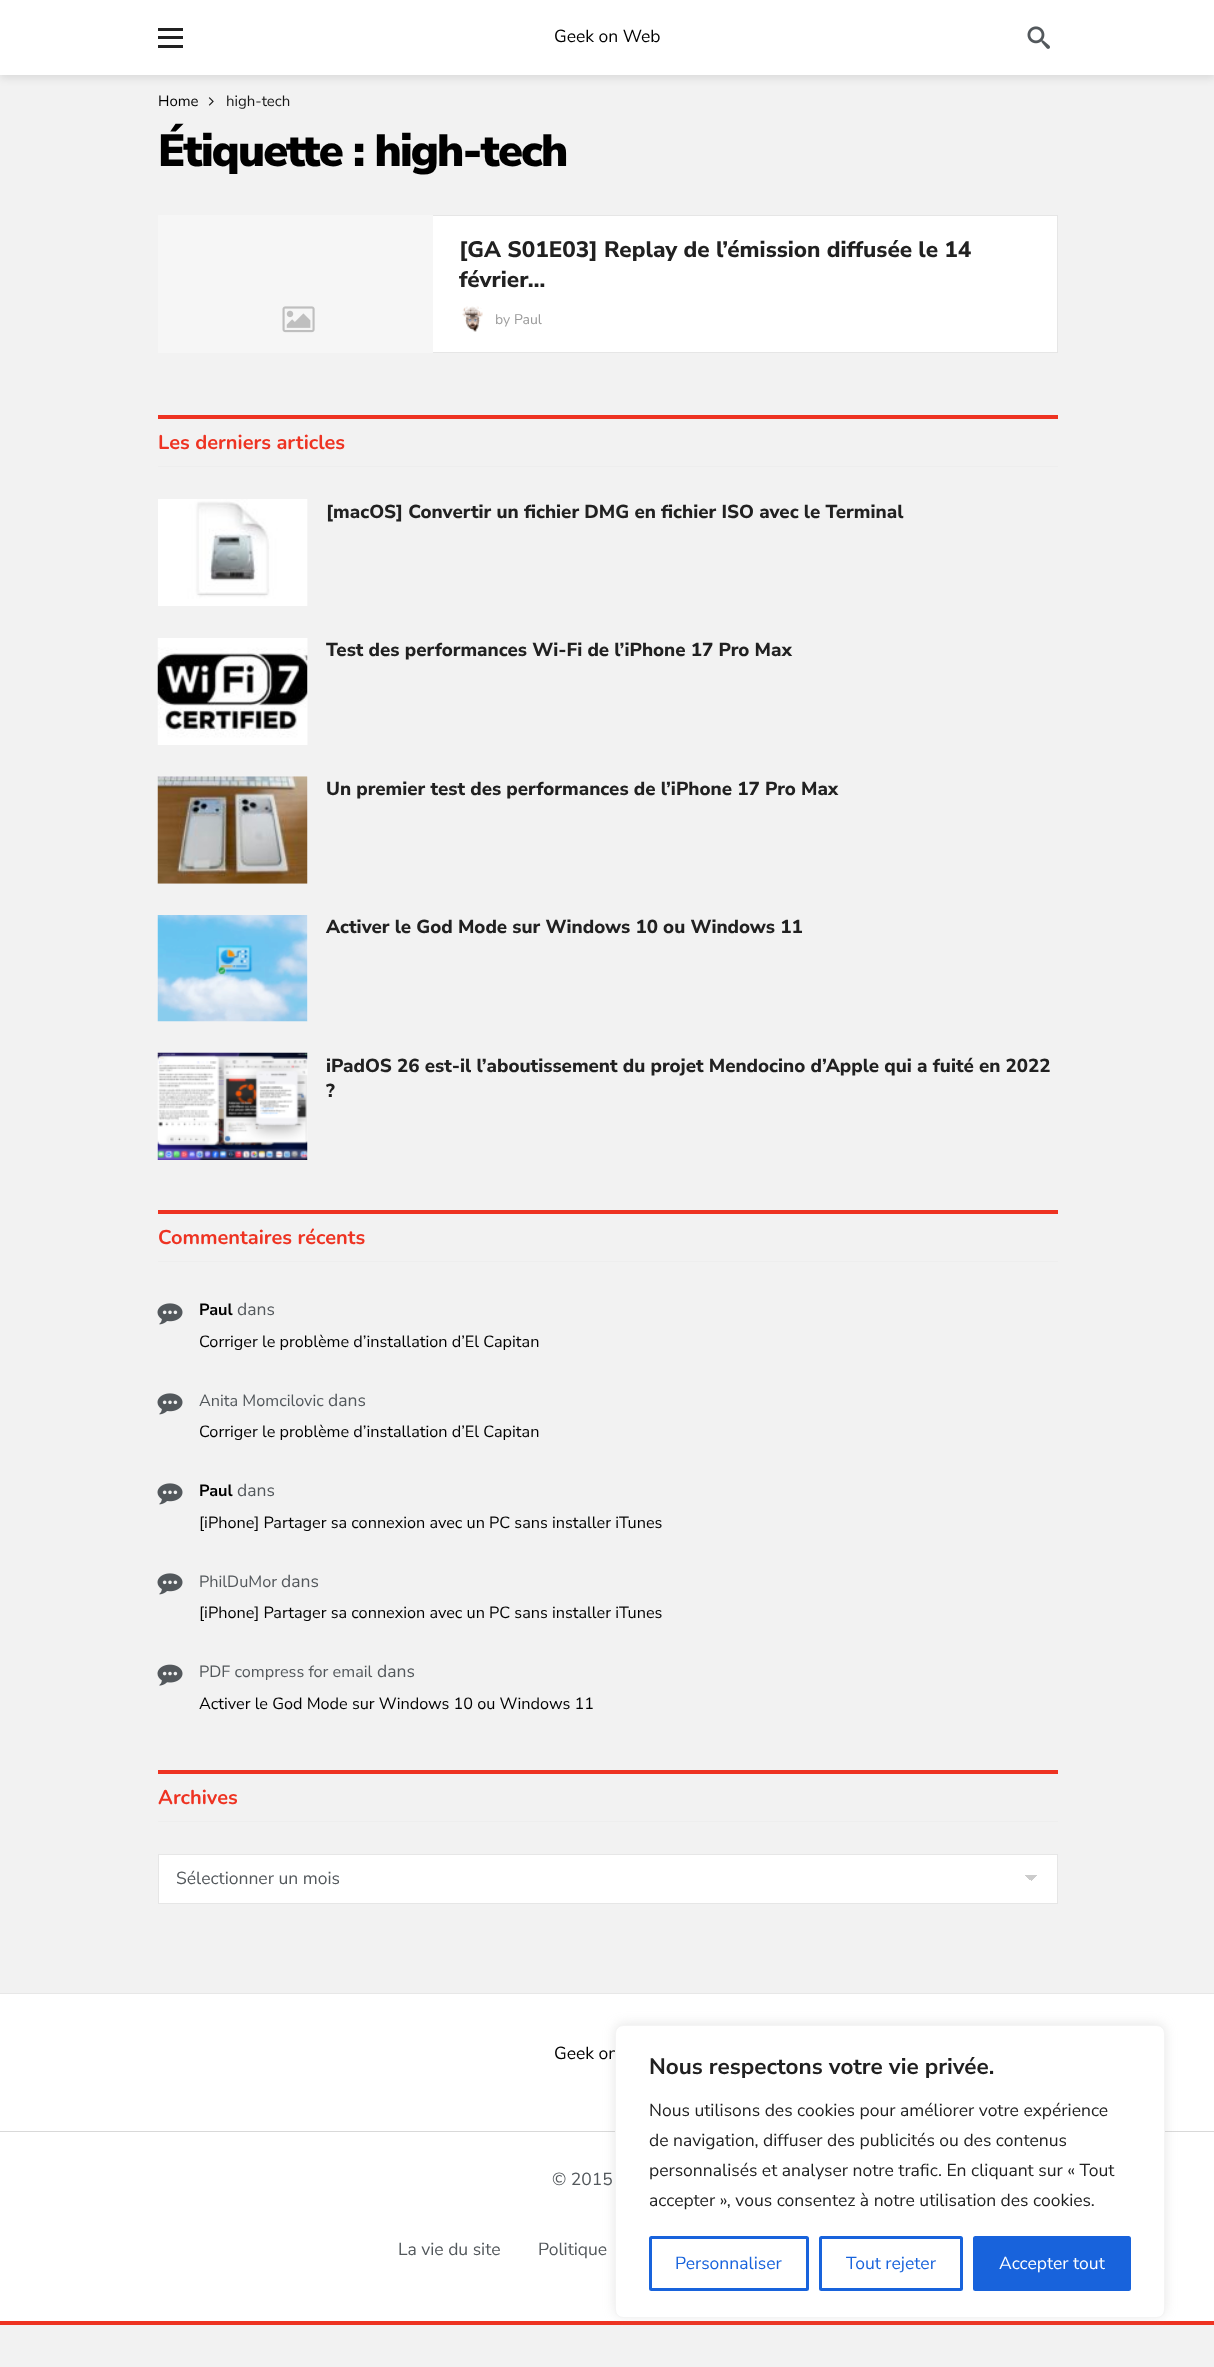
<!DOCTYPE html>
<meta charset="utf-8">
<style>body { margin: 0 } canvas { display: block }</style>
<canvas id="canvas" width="1214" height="2367"></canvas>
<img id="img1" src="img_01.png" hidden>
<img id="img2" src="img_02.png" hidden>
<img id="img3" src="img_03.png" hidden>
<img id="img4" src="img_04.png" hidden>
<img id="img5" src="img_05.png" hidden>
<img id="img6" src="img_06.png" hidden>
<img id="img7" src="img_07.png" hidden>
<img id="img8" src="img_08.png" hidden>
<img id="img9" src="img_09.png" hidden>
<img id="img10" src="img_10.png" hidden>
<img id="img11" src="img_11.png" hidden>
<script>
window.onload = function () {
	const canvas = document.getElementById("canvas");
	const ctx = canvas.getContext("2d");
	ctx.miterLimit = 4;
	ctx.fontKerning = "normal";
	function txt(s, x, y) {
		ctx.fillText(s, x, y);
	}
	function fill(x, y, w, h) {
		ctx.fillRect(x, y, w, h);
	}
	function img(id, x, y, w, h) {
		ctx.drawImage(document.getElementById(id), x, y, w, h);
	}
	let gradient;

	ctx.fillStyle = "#F2F2F2";
	fill(0, 0, 1214, 2367);
	ctx.fillStyle = "rgba(0, 0, 0, 0.1)";
	ctx.filter = "blur(4px)";
	ctx.beginPath();
	ctx.rect(0, 3, 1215, 75);
	ctx.fill();
	ctx.filter = "none";
	ctx.fillStyle = "#FFFFFF";
	fill(0, 0, 1214, 75);
	ctx.fillStyle = "#212121";
	fill(158, 28, 25, 3);
	fill(158, 36, 25, 3);
	fill(158, 45, 25, 3);
	img("img1", 1027, 26, 23, 23);
	img("img2", 208, 97, 6, 9);
	ctx.fillStyle = "#FFFFFF";
	fill(433, 216, 624, 136);
	ctx.strokeStyle = "#E6E6E6";
	ctx.strokeRect(158.5, 215.5, 899, 137);
	ctx.fillStyle = "#F6F6F6";
	fill(158, 215, 275, 138);
	img("img3", 282, 306, 33, 27);
	img("img4", 462, 306, 21, 26);
	ctx.fillStyle = "#EE3322";
	fill(158, 415, 900, 4);
	ctx.fillStyle = "#EEEEEE";
	fill(158, 466, 900, 1);
	img("img5", 158, 499, 149, 107);
	ctx.fillStyle = "#F6F6F6";
	fill(307, 499, 1, 107);
	fill(307, 638, 1, 107);
	img("img6", 157, 638, 151, 107);
	fill(158, 776, 150, 108);
	img("img7", 157, 776, 151, 108);
	fill(307, 915, 1, 106);
	img("img8", 157, 915, 151, 107);
	fill(307, 1053, 1, 107);
	img("img9", 157, 1052, 151, 108);
	ctx.fillStyle = "#EE3322";
	fill(158, 1210, 900, 4);
	ctx.fillStyle = "#EEEEEE";
	fill(158, 1261, 900, 1);
	img("img10", 157, 1303, 26, 22);
	img("img10", 157, 1393, 26, 22);
	img("img10", 157, 1483, 26, 22);
	img("img10", 157, 1573, 26, 22);
	img("img11", 157, 1664, 26, 22);
	ctx.fillStyle = "#EE3322";
	fill(158, 1770, 900, 4);
	ctx.fillStyle = "#EEEEEE";
	fill(158, 1821, 900, 1);
	ctx.fillStyle = "#FFFFFF";
	fill(159, 1855, 898, 48);
	gradient = ctx.createLinearGradient(1031, 1875, 1038, 1881);
	gradient.addColorStop(0.5, "#CCCCCC");
	gradient.addColorStop(0.5, "#FFFFFF");
	ctx.fillStyle = gradient;
	fill(1031, 1875, 7, 6);
	gradient = ctx.createLinearGradient(1025, 1881, 1031, 1875);
	gradient.addColorStop(0.5, "#FFFFFF");
	gradient.addColorStop(0.5, "#CCCCCC");
	ctx.fillStyle = gradient;
	fill(1025, 1875, 6, 5);
	ctx.strokeRect(158.5, 1854.5, 899, 49);
	ctx.fillStyle = "#FFFFFF";
	fill(0, 1994, 1214, 327);
	ctx.fillStyle = "#E7E7E7";
	fill(0, 1993, 1214, 1);
	ctx.fillStyle = "#D9D9D9";
	fill(0, 2131, 1214, 1);
	ctx.fillStyle = "#EE3322";
	fill(0, 2321, 1214, 4);
	ctx.fillStyle = "rgba(172, 171, 171, 0.3)";
	ctx.filter = "blur(6px)";
	ctx.beginPath();
	ctx.roundRect(615, 2024, 550, 292, 8);
	ctx.fill();
	ctx.filter = "none";
	ctx.font = "17.5px Nunito Sans";
	ctx.fillStyle = "#000000";
	txt("Geek on Web", 554, 42);
	ctx.font = "15px Nunito Sans";
	txt("Home", 158, 106);
	ctx.fillStyle = "#181818";
	txt("high-tech", 226, 106);
	ctx.letterSpacing = "-1.8px";
	ctx.font = "900 45px Nunito Sans";
	ctx.fillStyle = "#000000";
	txt("Étiquette : high-tech", 158, 166);
	ctx.letterSpacing = "0px";
	ctx.font = "800 22.5px Nunito Sans";
	ctx.fillStyle = "#212121";
	txt("[GA S01E03] Replay de l’émission diffusée le 14", 459, 257);
	txt("février…", 459, 287);
	ctx.font = "14px Nunito Sans";
	ctx.fillStyle = "#A0A0A0";
	txt("by", 495, 324);
	ctx.fillStyle = "#999999";
	txt("Paul", 514, 324);
	ctx.font = "200 20px Nunito";
	ctx.fillStyle = "#EE3322";
	txt("Les derniers articles", 158, 449);
	ctx.font = "800 18.75px Nunito Sans";
	ctx.fillStyle = "#212121";
	txt("[macOS] Convertir un fichier DMG en fichier ISO avec le Terminal", 326, 518);
	txt("Test des performances Wi-Fi de l’iPhone 17 Pro Max", 326, 656);
	txt("Un premier test des performances de l’iPhone 17 Pro Max", 326, 795);
	txt("Activer le God Mode sur Windows 10 ou Windows 11", 326, 933);
	txt("iPadOS 26 est-il l’aboutissement du projet Mendocino d’Apple qui a fuité en 2022", 326, 1072);
	txt("?", 326, 1097);
	ctx.font = "200 20px Nunito";
	ctx.fillStyle = "#EE3322";
	txt("Commentaires récents", 158, 1244);
	ctx.font = "bold 16.25px Nunito Sans";
	ctx.fillStyle = "#000000";
	txt("Paul", 199, 1315);
	ctx.font = "17.5px Nunito Sans";
	ctx.fillStyle = "#53585C";
	txt("dans", 237, 1315);
	ctx.font = "16.25px Nunito Sans";
	ctx.fillStyle = "#000000";
	txt("Corriger le problème d’installation d’El Capitan", 199, 1347);
	ctx.fillStyle = "#53585C";
	txt("Anita Momcilovic", 199, 1406);
	ctx.font = "17.5px Nunito Sans";
	txt("dans", 328, 1406);
	ctx.font = "16.25px Nunito Sans";
	ctx.fillStyle = "#000000";
	txt("Corriger le problème d’installation d’El Capitan", 199, 1437);
	ctx.font = "bold 16.25px Nunito Sans";
	txt("Paul", 199, 1496);
	ctx.font = "17.5px Nunito Sans";
	ctx.fillStyle = "#53585C";
	txt("dans", 237, 1496);
	ctx.font = "16.25px Nunito Sans";
	ctx.fillStyle = "#000000";
	txt("[iPhone] Partager sa connexion avec un PC sans installer iTunes", 199, 1528);
	ctx.fillStyle = "#53585C";
	txt("PhilDuMor", 199, 1587);
	ctx.font = "17.5px Nunito Sans";
	txt("dans", 281, 1587);
	ctx.font = "16.25px Nunito Sans";
	ctx.fillStyle = "#000000";
	txt("[iPhone] Partager sa connexion avec un PC sans installer iTunes", 199, 1618);
	ctx.fillStyle = "#53585C";
	txt("PDF compress for email", 199, 1677);
	ctx.font = "17.5px Nunito Sans";
	txt("dans", 377, 1677);
	ctx.font = "16.25px Nunito Sans";
	ctx.fillStyle = "#000000";
	txt("Activer le God Mode sur Windows 10 ou Windows 11", 199, 1709);
	ctx.font = "200 20px Nunito";
	ctx.fillStyle = "#EE3322";
	txt("Archives", 158, 1804);
	ctx.font = "17.5px Nunito Sans";
	ctx.fillStyle = "#53585C";
	txt("Sélectionner un mois", 176, 1884);
	ctx.fillStyle = "#000000";
	txt("Geek on", 554, 2059);
	ctx.fillStyle = "#53585C";
	txt("© 2015", 552, 2185);
	txt("La vie du site", 398, 2255);
	txt("Politique", 538, 2255);
	ctx.fillStyle = "#FFFFFF";
	ctx.beginPath();
	ctx.roundRect(615.5, 2025.5, 549, 292, 7.5);
	ctx.fill();
	ctx.strokeStyle = "#F4F4F4";
	ctx.stroke();
	ctx.font = "bold 22.5px Nunito Sans";
	ctx.fillStyle = "#212121";
	txt("Nous respectons votre vie privée.", 649, 2074);
	ctx.font = "17.5px Nunito Sans";
	txt("Nous utilisons des cookies pour améliorer votre expérience", 649, 2116);
	txt("de navigation, diffuser des publicités ou des contenus", 649, 2146);
	txt("personnalisés et analyser notre trafic. En cliquant sur « Tout", 649, 2176);
	txt("accepter », vous consentez à notre utilisation des cookies.", 649, 2206);
	ctx.beginPath();
	ctx.roundRect(650.5, 2237.5, 157, 52, 1);
	ctx.strokeStyle = "#1863DC";
	ctx.lineWidth = 3;
	ctx.stroke();
	ctx.fillStyle = "#1863DC";
	txt("Personnaliser", 675, 2269);
	ctx.beginPath();
	ctx.roundRect(820.5, 2237.5, 141, 52, 1);
	ctx.stroke();
	txt("Tout rejeter", 846, 2269);
	ctx.beginPath();
	ctx.roundRect(974.5, 2237.5, 155, 52, 1);
	ctx.fill();
	ctx.stroke();
	ctx.fillStyle = "#FFFFFF";
	txt("Accepter tout", 999, 2269);
};
</script>
